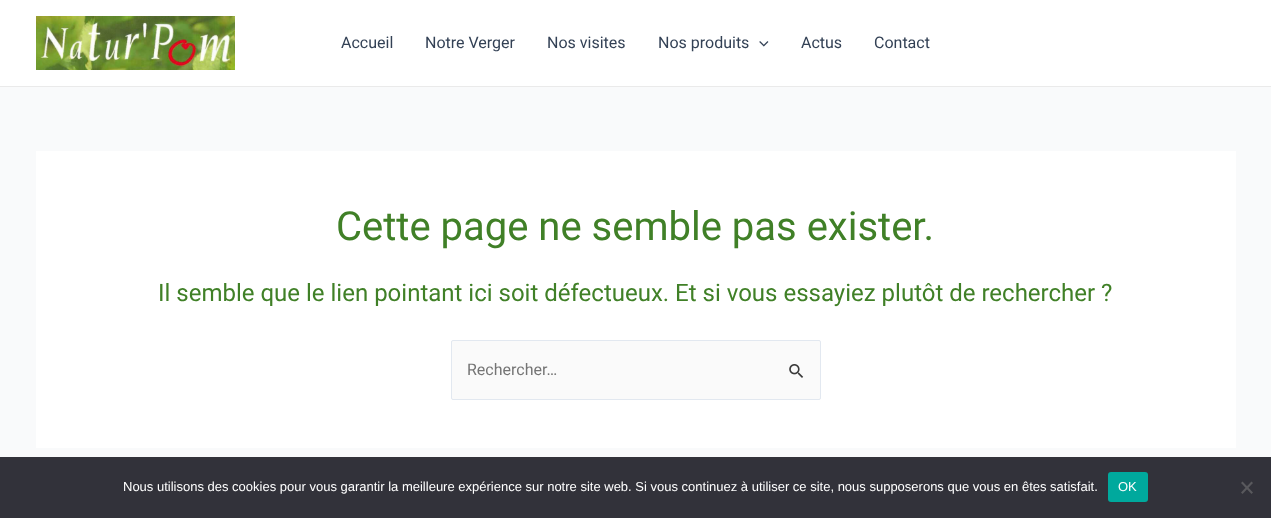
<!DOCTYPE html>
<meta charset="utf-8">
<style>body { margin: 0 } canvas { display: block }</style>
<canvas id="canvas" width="1271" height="518"></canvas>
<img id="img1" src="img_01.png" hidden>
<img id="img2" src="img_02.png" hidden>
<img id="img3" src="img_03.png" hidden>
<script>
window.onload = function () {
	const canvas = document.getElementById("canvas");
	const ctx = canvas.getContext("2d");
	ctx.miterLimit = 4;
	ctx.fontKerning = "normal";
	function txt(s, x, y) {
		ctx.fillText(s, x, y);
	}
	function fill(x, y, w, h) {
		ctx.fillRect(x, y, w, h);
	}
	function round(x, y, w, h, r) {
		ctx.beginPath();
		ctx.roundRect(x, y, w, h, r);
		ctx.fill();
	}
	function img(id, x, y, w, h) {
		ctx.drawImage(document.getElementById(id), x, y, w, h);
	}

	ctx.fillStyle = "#F9FAFB";
	fill(0, 0, 1271, 518);
	ctx.fillStyle = "#FFFFFF";
	fill(0, 0, 1271, 86);
	ctx.fillStyle = "#EAEAEA";
	fill(0, 86, 1271, 1);
	img("img1", 36, 16, 199, 54);
	img("img2", 759, 41, 10, 6);
	ctx.fillStyle = "#FFFFFF";
	fill(36, 151, 1200, 297);
	ctx.fillStyle = "#FAFAFA";
	ctx.beginPath();
	ctx.roundRect(451.5, 340.5, 369, 59, 1.5);
	ctx.fill();
	ctx.strokeStyle = "#E2E8F0";
	ctx.stroke();
	img("img3", 789, 364, 15, 14);
	ctx.fillStyle = "#32323A";
	fill(0, 457, 1271, 61);
	ctx.fillStyle = "#00A99D";
	round(1108, 472, 40, 30, 3);
	ctx.fillStyle = "#59595D";
	ctx.beginPath();
	ctx.moveTo(1251.5, 481.5);
	ctx.lineTo(1253, 483);
	ctx.lineTo(1242.5, 494);
	ctx.lineTo(1241, 492.5);
	ctx.closePath();
	ctx.fill();
	ctx.beginPath();
	ctx.moveTo(1241, 483);
	ctx.lineTo(1242.5, 481.5);
	ctx.lineTo(1253, 492.5);
	ctx.lineTo(1251.5, 494);
	ctx.closePath();
	ctx.fill();
	ctx.font = "16px Roboto";
	ctx.fillStyle = "#334155";
	txt("Accueil", 341, 48);
	txt("Notre Verger", 425, 48);
	txt("Nos visites", 547, 48);
	txt("Nos produits", 658, 48);
	txt("Actus", 801, 48);
	txt("Contact", 874, 48);
	ctx.font = "40px Roboto";
	ctx.fillStyle = "#408027";
	txt("Cette page ne semble pas exister.", 336, 240);
	ctx.font = "24px Roboto";
	txt("Il semble que le lien pointant ici soit défectueux. Et si vous essayiez plutôt de rechercher ?", 158, 301);
	ctx.font = "16px Roboto";
	ctx.fillStyle = "#757575";
	txt("Rechercher…", 467, 375);
	ctx.font = "13px Liberation Sans";
	ctx.fillStyle = "#FFFFFF";
	txt("Nous utilisons des cookies pour vous garantir la meilleure expérience sur notre site web. Si vous continuez à utiliser ce site, nous supposerons que vous en êtes satisfait.", 123, 491);
	txt("OK", 1118, 491);
};
</script>
